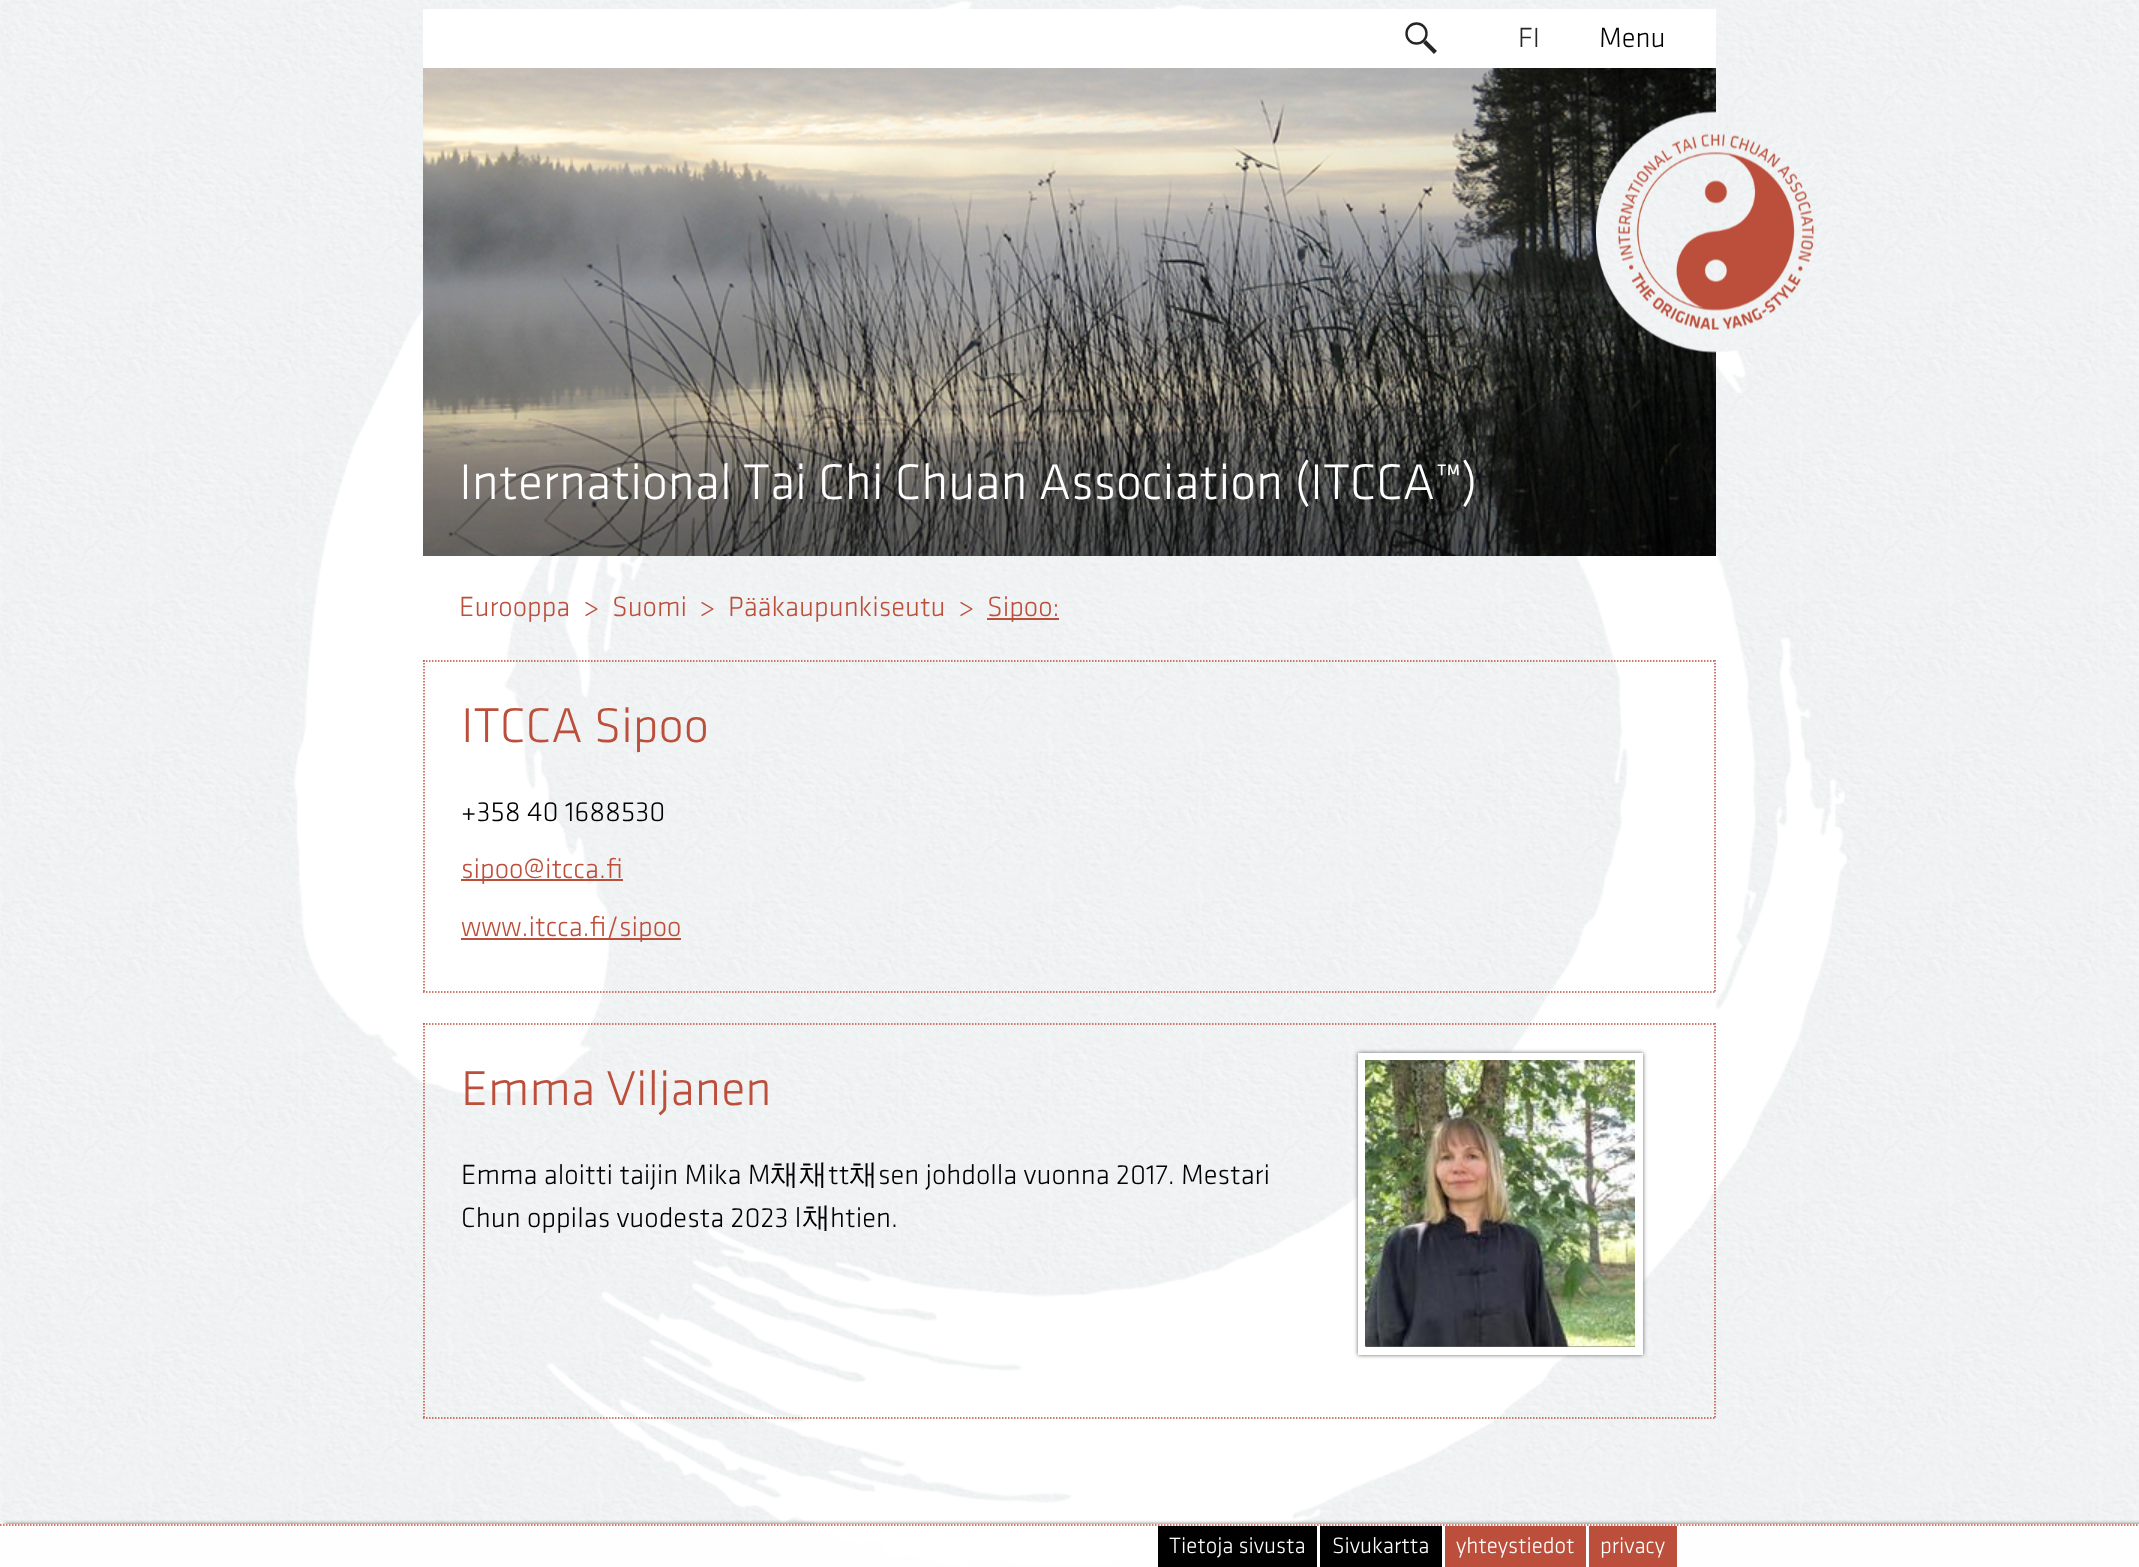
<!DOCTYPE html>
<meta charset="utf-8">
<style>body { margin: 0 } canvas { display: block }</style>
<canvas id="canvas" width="2139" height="1567"></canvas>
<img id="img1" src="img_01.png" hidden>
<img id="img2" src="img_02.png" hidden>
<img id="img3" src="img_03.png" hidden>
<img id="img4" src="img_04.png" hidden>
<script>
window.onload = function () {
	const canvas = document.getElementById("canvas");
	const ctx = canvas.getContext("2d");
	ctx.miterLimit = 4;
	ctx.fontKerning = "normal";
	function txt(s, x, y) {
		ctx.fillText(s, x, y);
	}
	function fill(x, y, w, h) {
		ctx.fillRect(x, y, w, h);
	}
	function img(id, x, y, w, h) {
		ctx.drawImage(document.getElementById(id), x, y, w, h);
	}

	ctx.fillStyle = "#FFFFFF";
	fill(0, 0, 2139, 1567);
	img("img1", 0, 0, 2139, 1567);
	fill(423, 9, 1293, 59);
	ctx.beginPath();
	ctx.arc(1416.5, 33.5, 10, 0, Math.PI * 2);
	ctx.strokeStyle = "#262626";
	ctx.lineWidth = 2.4;
	ctx.stroke();
	ctx.fillStyle = "#262626";
	ctx.beginPath();
	ctx.moveTo(1426, 40);
	ctx.lineTo(1423, 43);
	ctx.lineTo(1432.5, 52.5);
	ctx.bezierCurveTo(1434, 54.5, 1434, 54, 1435.5, 52.5);
	ctx.bezierCurveTo(1437, 51, 1437.5, 51, 1435.5, 49.5);
	ctx.closePath();
	ctx.fill("evenodd");
	img("img2", 423, 68, 1293, 488);
	img("img3", 1596, 111, 239, 242);
	ctx.fillStyle = "#BC4F3B";
	fill(987, 618, 72, 2);
	ctx.beginPath();
	ctx.moveTo(423, 661);
	ctx.lineTo(1716, 661);
	ctx.strokeStyle = "#BC4F3B";
	ctx.lineWidth = 1.5;
	ctx.setLineDash([1.5, 1.5]);
	ctx.stroke();
	ctx.beginPath();
	ctx.moveTo(1715, 660);
	ctx.lineTo(1715, 993);
	ctx.stroke();
	ctx.beginPath();
	ctx.moveTo(423, 992);
	ctx.lineTo(1716, 992);
	ctx.stroke();
	ctx.beginPath();
	ctx.moveTo(424, 660);
	ctx.lineTo(424, 993);
	ctx.stroke();
	fill(461, 879, 162, 2);
	fill(461, 938, 220, 2);
	ctx.beginPath();
	ctx.moveTo(423, 1024);
	ctx.lineTo(1716, 1024);
	ctx.stroke();
	ctx.beginPath();
	ctx.moveTo(1715, 1023);
	ctx.lineTo(1715, 1419);
	ctx.stroke();
	ctx.beginPath();
	ctx.moveTo(423, 1418);
	ctx.lineTo(1716, 1418);
	ctx.stroke();
	ctx.beginPath();
	ctx.moveTo(424, 1023);
	ctx.lineTo(424, 1419);
	ctx.stroke();
	ctx.fillStyle = "#666666";
	ctx.filter = "blur(2px)";
	ctx.beginPath();
	ctx.rect(1358, 1053, 285, 302);
	ctx.fill();
	ctx.filter = "none";
	ctx.strokeStyle = "#FFFFFF";
	ctx.lineWidth = 8;
	ctx.setLineDash([]);
	ctx.strokeRect(1362, 1057, 277, 294);
	img("img4", 1365, 1060, 270, 287);
	ctx.save();
	ctx.beginPath();
	ctx.rect(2, 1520, 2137, 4);
	ctx.clip();
	ctx.filter = "blur(2px)";
	ctx.beginPath();
	ctx.rect(5, 1524, 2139, 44);
	ctx.fill();
	ctx.filter = "none";
	ctx.restore();
	ctx.fillStyle = "rgba(255, 255, 255, 0.9)";
	fill(0, 1524, 2139, 43);
	ctx.beginPath();
	ctx.moveTo(0, 1525);
	ctx.lineTo(2139, 1525);
	ctx.strokeStyle = "#BC4F3B";
	ctx.lineWidth = 1.5;
	ctx.setLineDash([1.5, 1.5]);
	ctx.stroke();
	ctx.fillStyle = "#000000";
	fill(1158, 1526, 159, 41);
	fill(1320, 1526, 122, 41);
	ctx.fillStyle = "#BC4F3B";
	fill(1445, 1526, 141, 41);
	fill(1589, 1526, 88, 41);
	ctx.font = "300 28.75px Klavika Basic";
	ctx.fillStyle = "#262626";
	txt("FI", 1518, 47);
	ctx.fillStyle = "#000000";
	txt("Menu", 1599, 47);
	ctx.font = "300 51.8px Klavika Basic";
	ctx.fillStyle = "#FFFFFF";
	txt("International Tai Chi Chuan Association (ITCCA™)", 459, 499);
	ctx.font = "300 28.75px Klavika Basic";
	ctx.fillStyle = "#BC4F3B";
	txt("Eurooppa", 459, 616);
	txt(">", 583, 616);
	txt("Suomi", 612, 616);
	txt(">", 699, 616);
	txt("Pääkaupunkiseutu", 728, 616);
	txt(">", 958, 616);
	txt("Sipoo:", 987, 616);
	ctx.font = "300 50.5px Klavika Basic";
	txt("ITCCA Sipoo", 461, 742);
	ctx.font = "300 28.75px Klavika Basic";
	ctx.fillStyle = "#000000";
	txt("+358 40 1688530", 461, 821);
	ctx.fillStyle = "#BC4F3B";
	txt("sipoo@itcca.fi", 461, 878);
	txt("www.itcca.fi/sipoo", 461, 936);
	ctx.font = "300 50.5px Klavika Basic";
	txt("Emma Viljanen", 461, 1105);
	ctx.font = "300 28.75px Klavika Basic";
	ctx.fillStyle = "#000000";
	txt("Emma aloitti taijin Mika M", 461, 1184);
	ctx.font = "500 28.75px WenQuanYi Zen Hei";
	txt("채채", 770, 1184);
	ctx.font = "300 28.75px Klavika Basic";
	txt("tt", 828, 1184);
	ctx.font = "500 28.75px WenQuanYi Zen Hei";
	txt("채", 849, 1184);
	ctx.font = "300 28.75px Klavika Basic";
	txt("sen johdolla vuonna 2017. Mestari", 878, 1184);
	txt("Chun oppilas vuodesta 2023 l", 461, 1227);
	ctx.font = "500 28.75px WenQuanYi Zen Hei";
	txt("채", 802, 1227);
	ctx.font = "300 28.75px Klavika Basic";
	txt("htien.", 830, 1227);
	ctx.font = "300 23px Klavika Basic";
	ctx.fillStyle = "#FFFFFF";
	txt("Tietoja sivusta", 1169, 1553);
	txt("Sivukartta", 1332, 1553);
	txt("yhteystiedot", 1456, 1553);
	txt("privacy", 1600, 1553);
};
</script>
